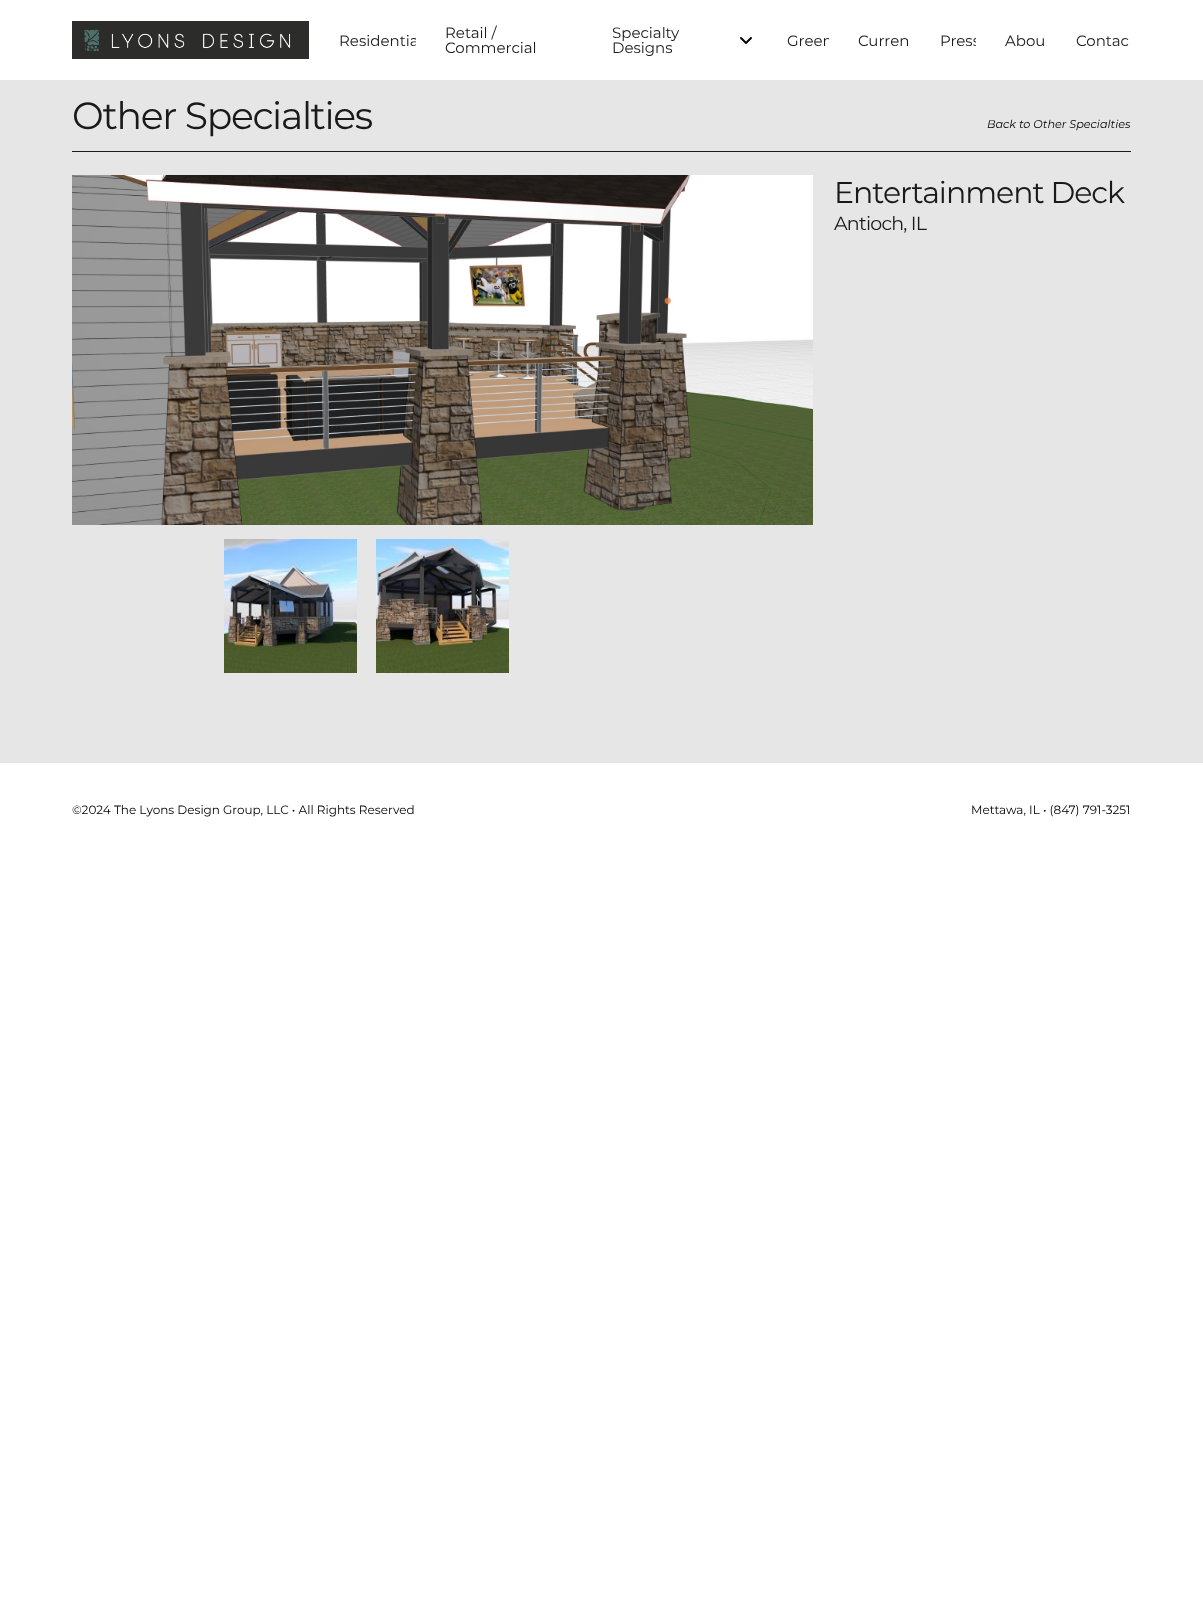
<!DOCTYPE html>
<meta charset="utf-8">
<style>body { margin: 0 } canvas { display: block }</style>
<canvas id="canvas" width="1203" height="1602"></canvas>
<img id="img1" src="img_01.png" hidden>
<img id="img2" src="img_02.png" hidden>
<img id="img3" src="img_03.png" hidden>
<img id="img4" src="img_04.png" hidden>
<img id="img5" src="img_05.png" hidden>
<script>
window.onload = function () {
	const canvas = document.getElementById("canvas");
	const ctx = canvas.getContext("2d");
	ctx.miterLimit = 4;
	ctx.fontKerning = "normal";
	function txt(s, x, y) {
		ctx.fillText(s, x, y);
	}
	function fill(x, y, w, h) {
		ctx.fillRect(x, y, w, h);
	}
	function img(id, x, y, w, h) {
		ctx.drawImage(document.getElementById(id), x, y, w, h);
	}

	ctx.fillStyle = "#FFFFFF";
	fill(0, 0, 1203, 1602);
	img("img1", 72, 21, 237, 38);
	img("img2", 740, 37, 12, 7);
	ctx.fillStyle = "#E6E6E6";
	fill(0, 80, 1203, 683);
	ctx.fillStyle = "#1A1A1A";
	fill(72, 151, 1059, 1);
	img("img3", 72, 175, 741, 350);
	img("img4", 224, 539, 133, 134);
	img("img5", 376, 539, 133, 134);
	ctx.save();
	ctx.beginPath();
	ctx.rect(310, 8, 106, 64);
	ctx.clip();
	ctx.font = "15px Montserrat";
	txt("Residentia", 339, 46);
	ctx.restore();
	ctx.font = "15px Montserrat";
	txt("Retail /", 445, 38);
	txt("Commercial", 445, 53);
	txt("Specialty", 612, 38);
	txt("Designs", 612, 53);
	ctx.save();
	ctx.beginPath();
	ctx.rect(758, 8, 71, 64);
	ctx.clip();
	txt("Green", 787, 46);
	ctx.restore();
	txt("Curren", 858, 46);
	ctx.save();
	ctx.beginPath();
	ctx.rect(911, 8, 65, 64);
	ctx.clip();
	txt("Press", 940, 46);
	ctx.restore();
	txt("Abou", 1005, 46);
	txt("Contac", 1076, 46);
	ctx.letterSpacing = "-1.3px";
	ctx.font = "37.75px Montserrat";
	txt("Other Specialties", 72, 129);
	ctx.letterSpacing = "0px";
	ctx.font = "italic 11.25px Montserrat";
	ctx.fillStyle = "#000000";
	txt("Back to Other Specialties", 987, 128);
	ctx.letterSpacing = "-1px";
	ctx.font = "30px Montserrat";
	ctx.fillStyle = "#1A1A1A";
	txt("Entertainment Deck", 834, 203);
	ctx.letterSpacing = "-0.75px";
	ctx.font = "19px Montserrat";
	txt("Antioch, IL", 834, 230);
	ctx.letterSpacing = "0px";
	ctx.font = "12px Montserrat";
	ctx.fillStyle = "#000000";
	txt("©2024 The Lyons Design Group, LLC • All Rights Reserved", 72, 814);
	txt("Mettawa, IL • (847) 791-3251", 971, 814);
};
</script>
